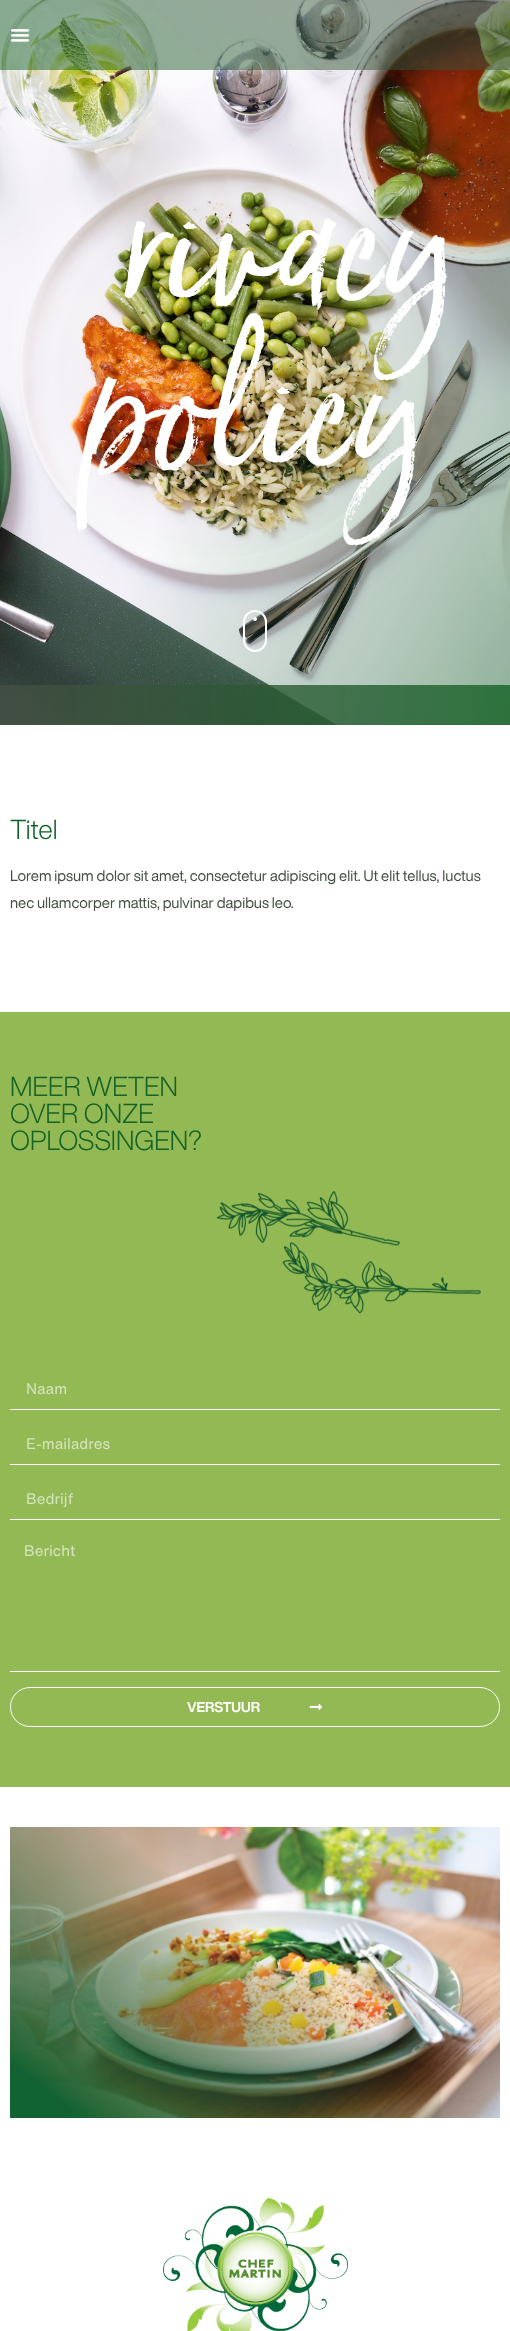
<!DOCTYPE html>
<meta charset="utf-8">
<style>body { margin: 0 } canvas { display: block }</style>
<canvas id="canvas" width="510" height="2331"></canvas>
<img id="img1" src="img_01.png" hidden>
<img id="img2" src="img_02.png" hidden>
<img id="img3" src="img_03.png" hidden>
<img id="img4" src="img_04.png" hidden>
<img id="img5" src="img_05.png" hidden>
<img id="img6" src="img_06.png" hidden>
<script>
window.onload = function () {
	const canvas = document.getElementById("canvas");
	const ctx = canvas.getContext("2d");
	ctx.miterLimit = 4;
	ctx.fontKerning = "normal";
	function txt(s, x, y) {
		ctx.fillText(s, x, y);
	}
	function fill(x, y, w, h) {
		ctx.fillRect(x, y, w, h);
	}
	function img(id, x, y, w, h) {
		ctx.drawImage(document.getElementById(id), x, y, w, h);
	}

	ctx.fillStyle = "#FFFFFF";
	fill(0, 0, 510, 2331);
	img("img1", 0, 0, 510, 725);
	img("img2", 10, 29, 20, 13);
	ctx.beginPath();
	ctx.roundRect(244, 611, 22, 40, 11);
	ctx.strokeStyle = "#FFFFFF";
	ctx.lineWidth = 2;
	ctx.stroke();
	ctx.beginPath();
	ctx.arc(255, 619, 2, 0, Math.PI * 2);
	ctx.fill();
	ctx.fillStyle = "#93B954";
	fill(0, 1012, 510, 775);
	img("img3", 216, 1191, 265, 123);
	ctx.fillStyle = "#FFFFFF";
	fill(10, 1409, 490, 1);
	fill(10, 1464, 490, 1);
	fill(10, 1519, 490, 1);
	fill(10, 1671, 490, 1);
	ctx.beginPath();
	ctx.roundRect(10.5, 1687.5, 489, 39, 19.5);
	ctx.lineWidth = 1;
	ctx.stroke();
	img("img4", 309, 1704, 13, 6);
	img("img5", 10, 1827, 490, 291);
	img("img6", 163, 2198, 185, 133);
	ctx.font = "165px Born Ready";
	txt("rivacy", 125, 296);
	txt("policy", 85, 461);
	ctx.font = "300 27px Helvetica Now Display";
	ctx.fillStyle = "#0C6225";
	txt("Titel", 10, 839);
	ctx.font = "15px Helvetica Now Display";
	ctx.fillStyle = "#444F43";
	txt("Lorem ipsum dolor sit amet, consectetur adipiscing elit. Ut elit tellus, luctus", 10, 881);
	txt("nec ullamcorper mattis, pulvinar dapibus leo.", 10, 908);
	ctx.font = "300 27px Helvetica Now Display";
	ctx.fillStyle = "#156226";
	txt("MEER WETEN", 10, 1096);
	txt("OVER ONZE", 10, 1123);
	txt("OPLOSSINGEN?", 10, 1150);
	ctx.font = "15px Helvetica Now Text";
	ctx.fillStyle = "#D4E3BB";
	txt("Naam", 26, 1394);
	txt("E-mailadres", 26, 1449);
	txt("Bedrijf", 26, 1504);
	txt("Bericht", 24, 1556);
	ctx.font = "bold 14px Helvetica Now Display";
	ctx.fillStyle = "#FFFFFF";
	txt("VERSTUUR", 187, 1712);
};
</script>
